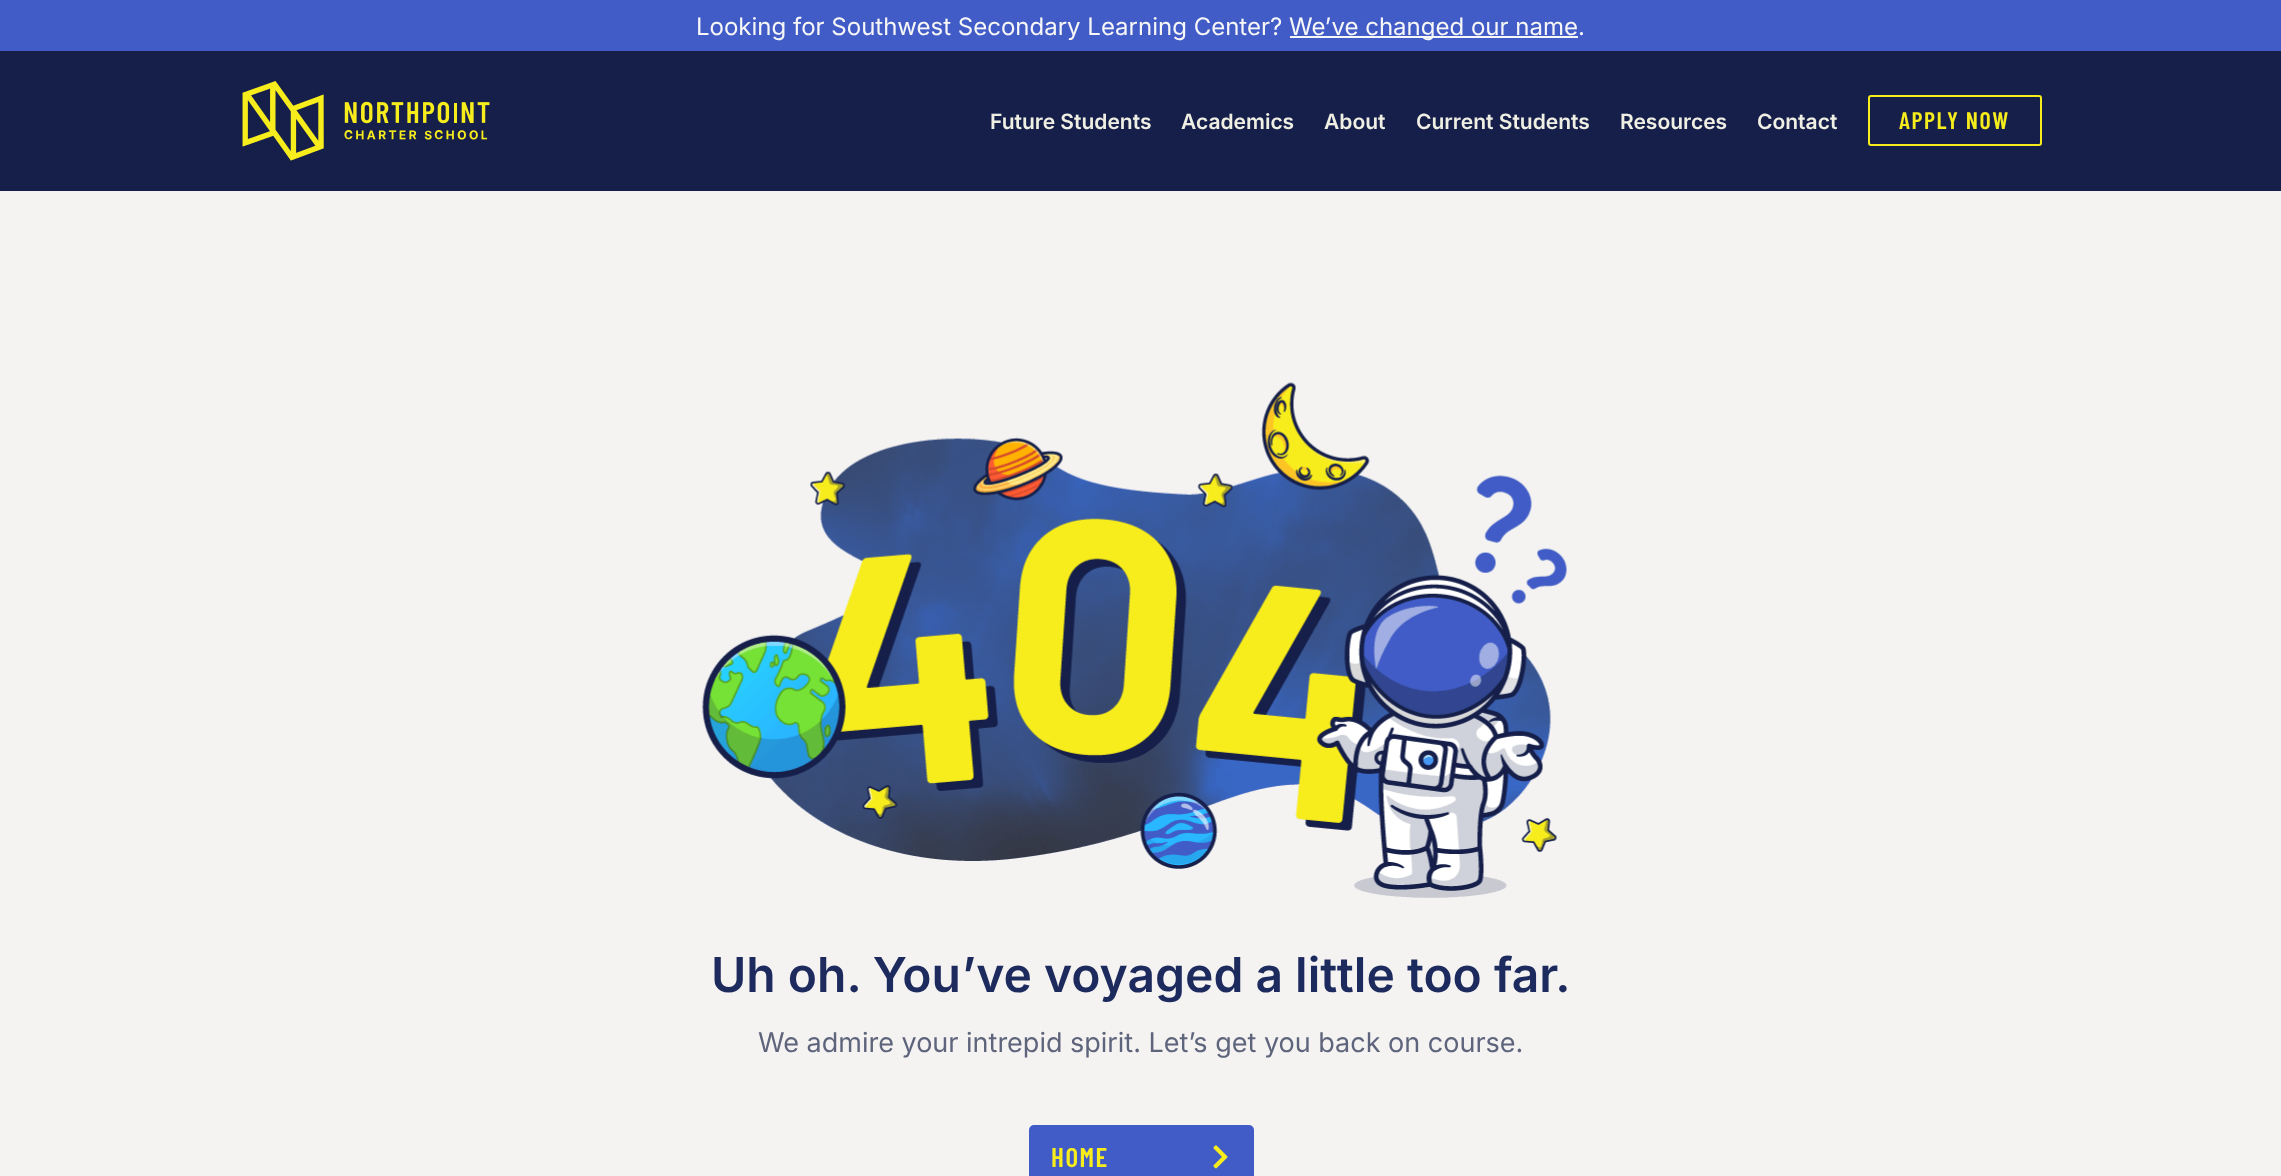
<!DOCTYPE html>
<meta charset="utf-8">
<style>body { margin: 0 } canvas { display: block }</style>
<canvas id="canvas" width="2281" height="1176"></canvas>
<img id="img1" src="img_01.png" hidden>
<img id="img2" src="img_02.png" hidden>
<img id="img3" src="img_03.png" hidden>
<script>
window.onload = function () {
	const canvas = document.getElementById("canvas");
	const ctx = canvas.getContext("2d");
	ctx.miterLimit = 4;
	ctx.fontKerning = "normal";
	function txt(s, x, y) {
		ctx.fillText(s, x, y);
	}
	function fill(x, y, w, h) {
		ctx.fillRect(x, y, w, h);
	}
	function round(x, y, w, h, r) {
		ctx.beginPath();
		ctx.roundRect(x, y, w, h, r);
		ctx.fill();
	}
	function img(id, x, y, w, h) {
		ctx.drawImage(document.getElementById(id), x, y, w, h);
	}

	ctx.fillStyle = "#151F4A";
	fill(0, 0, 2281, 1176);
	ctx.fillStyle = "#425CC7";
	fill(0, 0, 2281, 51);
	ctx.fillStyle = "#F7F7F7";
	fill(1290, 36, 288, 2);
	img("img1", 242, 81, 248, 80);
	ctx.beginPath();
	ctx.roundRect(1869, 96, 172, 49, 2);
	ctx.strokeStyle = "#F7EC1C";
	ctx.lineWidth = 2;
	ctx.stroke();
	ctx.fillStyle = "#F4F3F2";
	fill(0, 191, 2281, 985);
	img("img2", 702, 382, 865, 516);
	ctx.fillStyle = "#425CC7";
	round(1029, 1125, 225, 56, 5);
	img("img3", 1213, 1145, 15, 24);
	ctx.font = "24px Inter";
	ctx.fillStyle = "#F7F7F7";
	txt("Looking for Southwest Secondary Learning Center?", 696, 35);
	txt("We’ve changed our name.", 1289, 35);
	ctx.font = "600 21px Inter";
	ctx.fillStyle = "#F0EFE4";
	txt("Future Students", 990, 129);
	txt("Academics", 1181, 129);
	txt("About", 1324, 129);
	txt("Current Students", 1416, 129);
	txt("Resources", 1620, 129);
	txt("Contact", 1757, 129);
	ctx.letterSpacing = "1.5px";
	ctx.font = "600 24px Barlow Condensed";
	ctx.fillStyle = "#F7EC1C";
	txt("APPLY NOW", 1899, 129);
	ctx.letterSpacing = "0px";
	ctx.font = "600 48px Inter";
	ctx.fillStyle = "#1D2A5D";
	txt("Uh oh. You’ve voyaged a little too far.", 711, 992);
	ctx.font = "27px Inter";
	ctx.fillStyle = "#5E647B";
	txt("We admire your intrepid spirit. Let’s get you back on course.", 758, 1052);
	ctx.letterSpacing = "1.5px";
	ctx.font = "600 27px Barlow Condensed";
	ctx.fillStyle = "#F7EC1C";
	txt("HOME", 1051, 1167);
};
</script>
